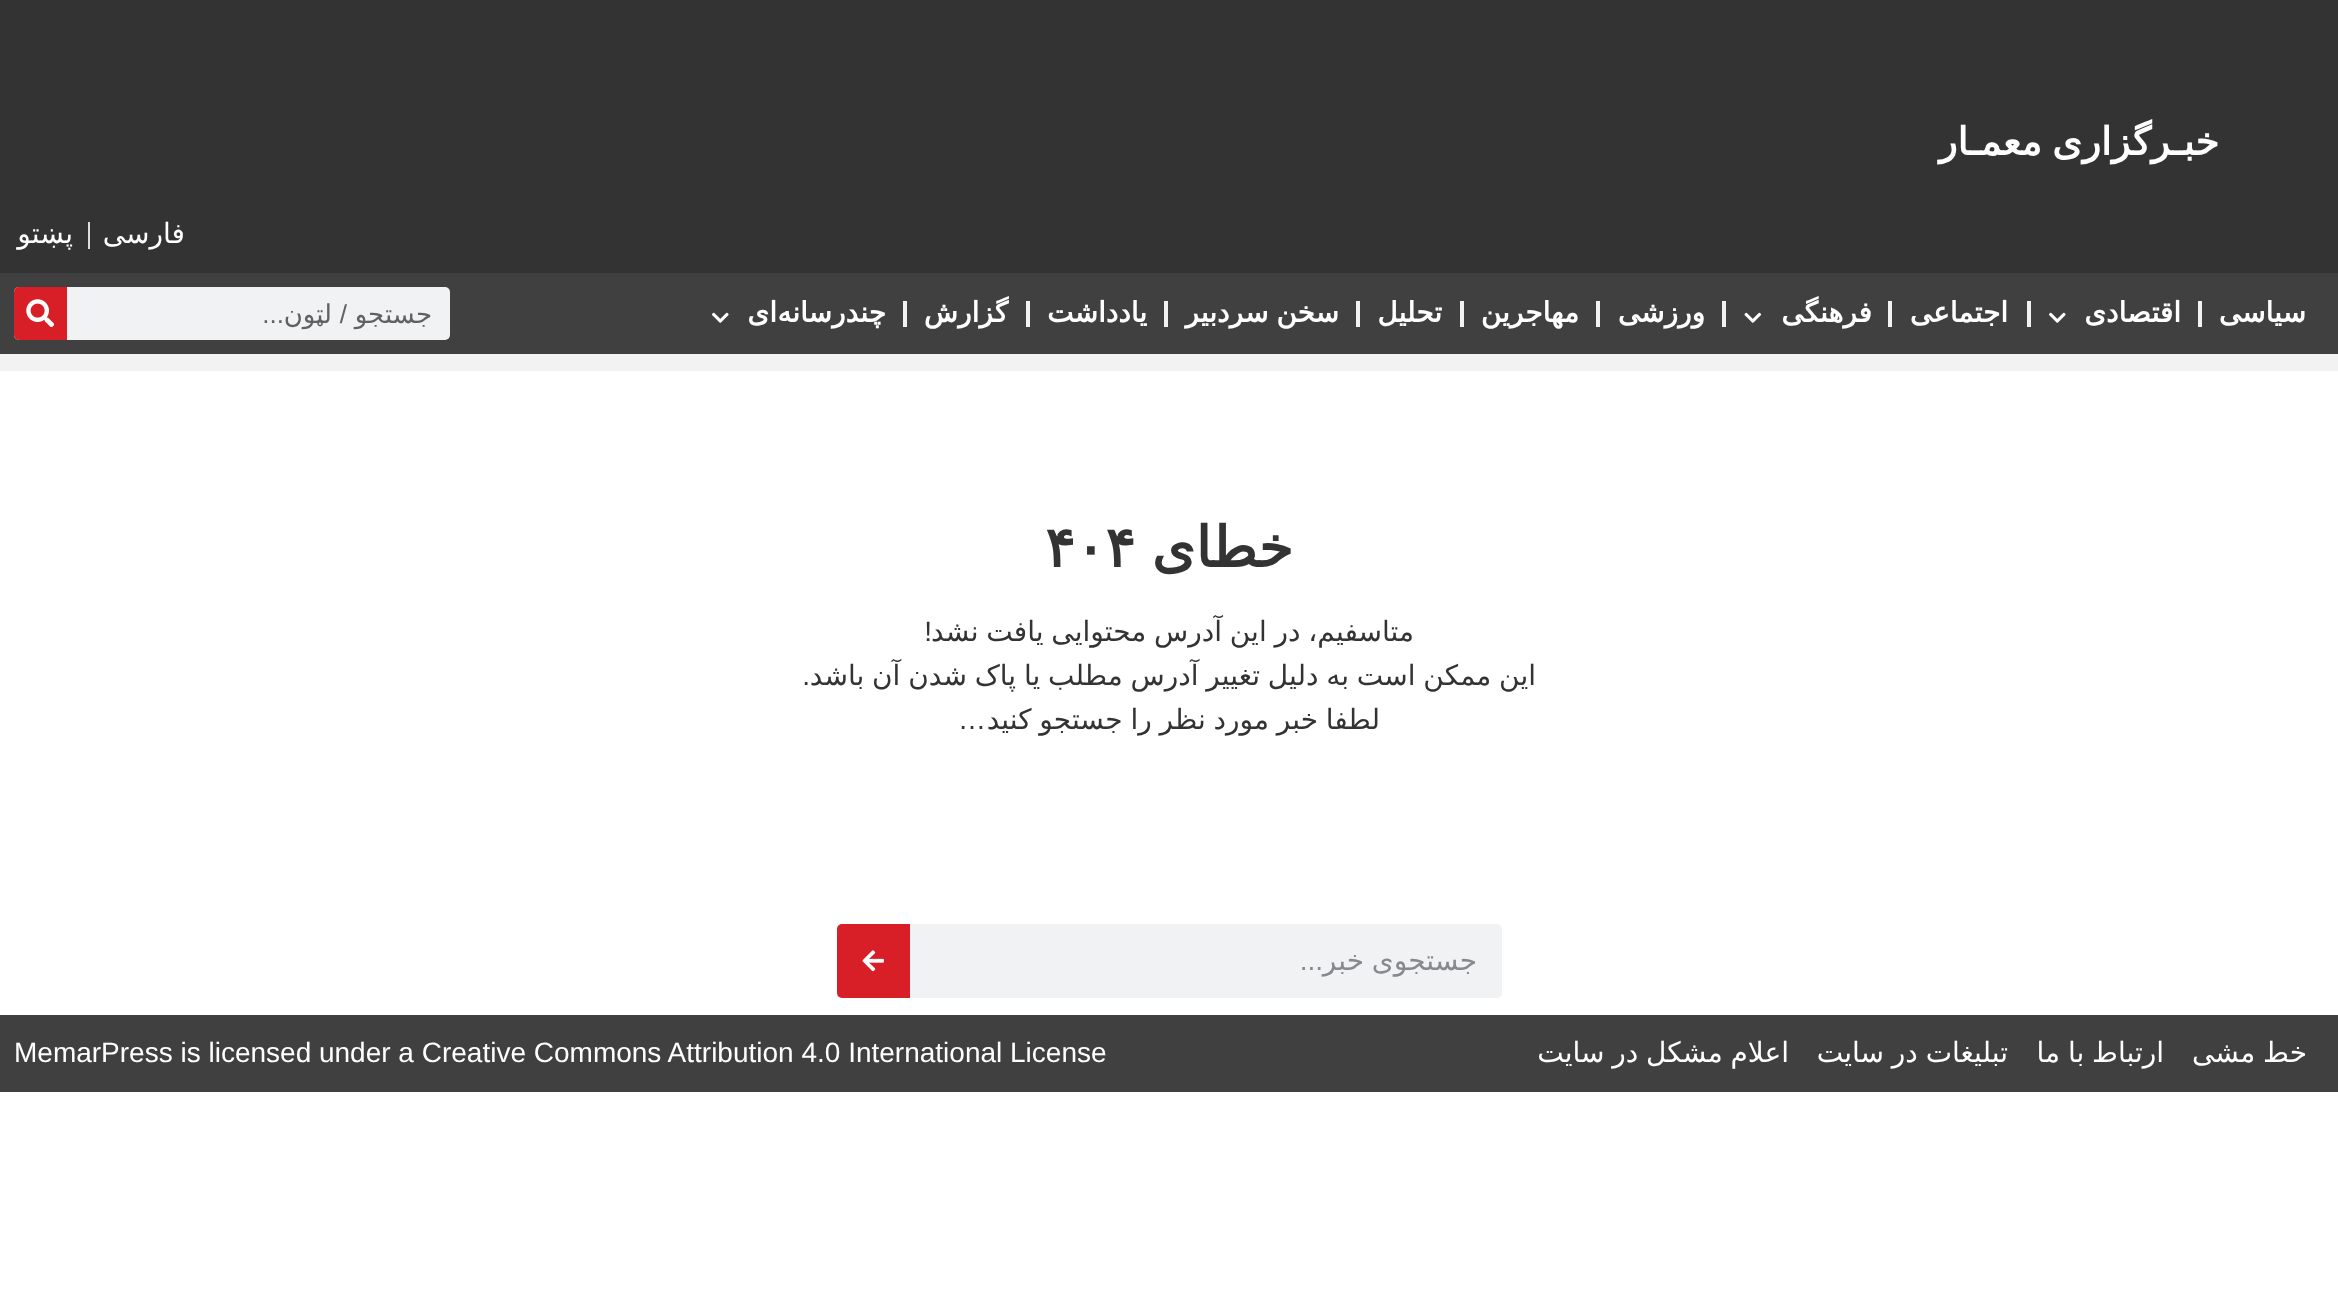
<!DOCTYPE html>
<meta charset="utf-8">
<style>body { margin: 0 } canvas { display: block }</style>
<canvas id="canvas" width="2338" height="1295"></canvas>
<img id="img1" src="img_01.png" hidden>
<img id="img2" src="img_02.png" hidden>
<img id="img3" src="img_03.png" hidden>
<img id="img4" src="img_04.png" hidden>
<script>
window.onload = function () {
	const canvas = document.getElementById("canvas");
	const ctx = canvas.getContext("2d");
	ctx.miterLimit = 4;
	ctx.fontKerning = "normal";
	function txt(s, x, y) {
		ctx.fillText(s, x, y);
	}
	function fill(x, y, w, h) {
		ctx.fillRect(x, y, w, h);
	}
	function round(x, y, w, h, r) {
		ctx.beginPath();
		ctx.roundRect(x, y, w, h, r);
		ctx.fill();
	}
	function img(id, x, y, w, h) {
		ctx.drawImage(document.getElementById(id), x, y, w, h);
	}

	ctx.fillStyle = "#FFFFFF";
	fill(0, 0, 2338, 1295);
	ctx.fillStyle = "#333333";
	fill(0, 0, 2338, 273);
	ctx.fillStyle = "#DDDDDD";
	fill(88, 222, 2, 27);
	ctx.fillStyle = "#404040";
	fill(0, 273, 2338, 81);
	ctx.fillStyle = "#F2F2F2";
	fill(2198, 301, 4, 26);
	img("img1", 2049, 312, 17, 11);
	fill(2027, 301, 4, 26);
	fill(1888, 301, 4, 26);
	img("img2", 1744, 312, 18, 11);
	fill(1722, 301, 4, 26);
	fill(1596, 301, 4, 26);
	fill(1460, 301, 4, 26);
	fill(1356, 301, 4, 26);
	fill(1164, 301, 4, 26);
	fill(1026, 301, 4, 26);
	fill(903, 301, 4, 26);
	img("img1", 712, 312, 17, 11);
	ctx.fillStyle = "#F1F2F3";
	round(14, 287, 436, 53, 5);
	ctx.fillStyle = "#D81F27";
	ctx.beginPath();
	ctx.roundRect(14, 287, 53, 53, [5, 0, 0, 5]);
	ctx.fill();
	img("img3", 26, 299, 28, 28);
	ctx.fillStyle = "#F2F2F2";
	fill(0, 354, 2338, 17);
	ctx.fillStyle = "#F1F2F3";
	round(837, 924, 665, 74, 5);
	ctx.fillStyle = "#D81F27";
	ctx.beginPath();
	ctx.roundRect(837, 924, 73, 74, [5, 0, 0, 5]);
	ctx.fill();
	img("img4", 862, 950, 22, 22);
	ctx.fillStyle = "#404040";
	fill(0, 1015, 2338, 77);
	ctx.wordSpacing = "-2px";
	ctx.direction = "rtl";
	ctx.font = "bold 38.5px DejaVu Sans";
	ctx.fillStyle = "#FFFFFF";
	txt("خبـرگزاری معمـار", 2219, 155);
	ctx.wordSpacing = "0px";
	ctx.font = "28px DejaVu Sans";
	txt("فارسی", 185, 243);
	txt("پښتو", 73, 243);
	ctx.font = "bold 28px DejaVu Sans";
	txt("سیاسی", 2306, 322);
	txt("اقتصادی", 2181, 322);
	txt("اجتماعی", 2008, 322);
	txt("فرهنگی", 1872, 322);
	txt("ورزشی", 1705, 322);
	txt("مهاجرین", 1579, 322);
	txt("تحلیل", 1442, 322);
	ctx.wordSpacing = "-1.1px";
	txt("سخن سردبیر", 1339, 322);
	ctx.wordSpacing = "0px";
	txt("یادداشت", 1147, 322);
	txt("گزارش", 1008, 322);
	txt("چندرسانه", 886, 322);
	txt("ای", 777, 322);
	ctx.font = "26px DejaVu Sans";
	ctx.fillStyle = "#606161";
	txt("جستجو", 432, 323);
	ctx.font = "26px Liberation Sans";
	txt("/", 347, 323);
	ctx.font = "26px DejaVu Sans";
	txt("لټون", 332, 323);
	ctx.font = "26px Liberation Sans";
	txt("...", 284, 323);
	ctx.font = "bold 56px DejaVu Sans";
	ctx.fillStyle = "#333333";
	txt("خطای", 1293, 567);
	ctx.direction = "ltr";
	txt("۴۰۴", 1045, 567);
	ctx.wordSpacing = "-1.1px";
	ctx.direction = "rtl";
	ctx.font = "28px DejaVu Sans";
	txt("متاسفیم، در این آدرس محتوایی یافت نشد", 1414, 641);
	ctx.wordSpacing = "0px";
	ctx.font = "28px Liberation Sans";
	txt("!", 932, 641);
	ctx.wordSpacing = "-1.1px";
	ctx.font = "28px DejaVu Sans";
	txt("این ممکن است به دلیل تغییر آدرس مطلب یا پاک شدن آن باشد", 1536, 685);
	ctx.wordSpacing = "0px";
	ctx.font = "28px Liberation Sans";
	txt(".", 810, 685);
	ctx.wordSpacing = "-1.1px";
	ctx.font = "28px DejaVu Sans";
	txt("لطفا خبر مورد نظر را جستجو کنید", 1380, 729);
	ctx.wordSpacing = "0px";
	ctx.font = "28px Liberation Sans";
	txt("…", 986, 729);
	ctx.wordSpacing = "-1.1px";
	ctx.font = "28px DejaVu Sans";
	ctx.fillStyle = "#868A8E";
	txt("جستجوی خبر", 1477, 970);
	ctx.wordSpacing = "0px";
	ctx.font = "28px Liberation Sans";
	txt("...", 1323, 970);
	ctx.wordSpacing = "-1.1px";
	ctx.font = "28px DejaVu Sans";
	ctx.fillStyle = "#FFFFFF";
	txt("خط مشی", 2307, 1062);
	txt("ارتباط با ما", 2164, 1062);
	txt("تبلیغات در سایت", 2008, 1062);
	txt("اعلام مشکل در سایت", 1789, 1062);
	ctx.wordSpacing = "0px";
	ctx.direction = "ltr";
	ctx.font = "28px Liberation Sans";
	txt("MemarPress is licensed under a Creative Commons Attribution 4.0 International License", 14, 1062);
};
</script>
